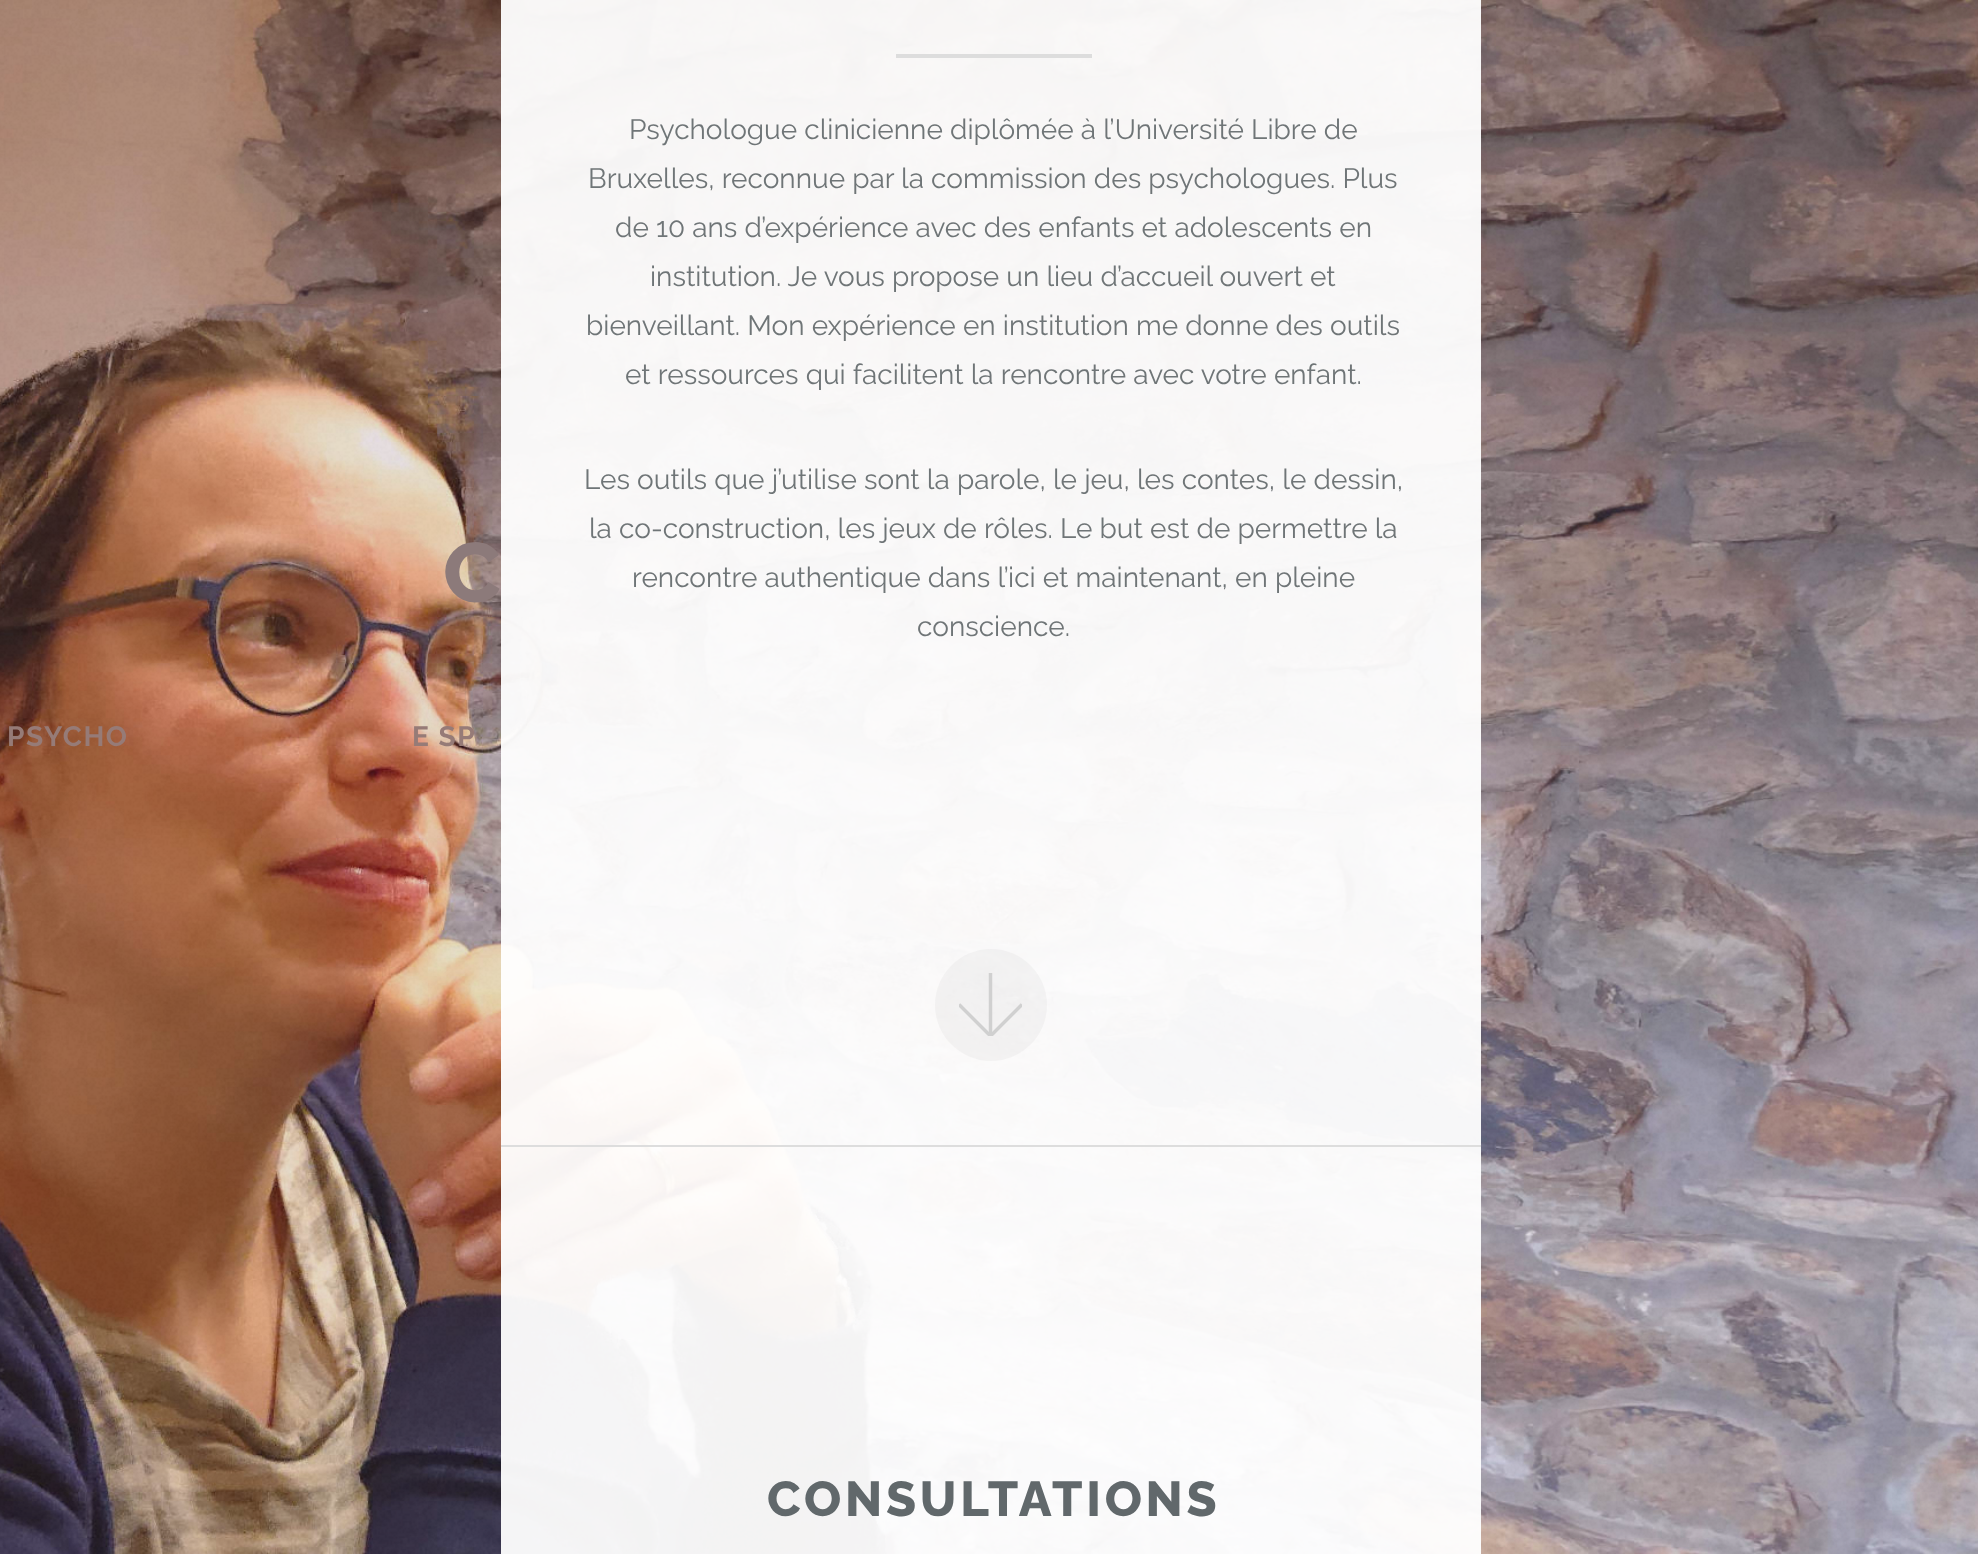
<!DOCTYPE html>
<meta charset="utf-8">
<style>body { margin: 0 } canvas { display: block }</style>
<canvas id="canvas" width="1978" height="1554"></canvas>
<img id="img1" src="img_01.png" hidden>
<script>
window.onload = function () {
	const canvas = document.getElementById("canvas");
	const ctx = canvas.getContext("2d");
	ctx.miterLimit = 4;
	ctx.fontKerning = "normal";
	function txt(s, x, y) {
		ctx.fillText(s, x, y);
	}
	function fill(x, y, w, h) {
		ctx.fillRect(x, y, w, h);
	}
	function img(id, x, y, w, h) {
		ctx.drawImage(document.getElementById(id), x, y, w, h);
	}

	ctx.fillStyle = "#FFFFFF";
	fill(0, 0, 1978, 1554);
	img("img1", 0, 0, 1978, 1554);
	ctx.fillStyle = "rgba(255, 255, 255, 0.95)";
	fill(501, 0, 980, 1145);
	ctx.fillStyle = "#DDDDDD";
	fill(896, 54, 196, 4);
	ctx.fillStyle = "rgba(144, 144, 144, 0.07)";
	ctx.beginPath();
	ctx.arc(991, 1005, 56, 0, Math.PI * 2);
	ctx.fill();
	ctx.save();
	ctx.beginPath();
	ctx.rect(959, 973, 63, 63);
	ctx.clip();
	ctx.beginPath();
	ctx.moveTo(959, 1004.5);
	ctx.lineTo(990.5, 1036);
	ctx.moveTo(1022, 1004.5);
	ctx.lineTo(990.5, 1036);
	ctx.strokeStyle = "#D0D0D0";
	ctx.lineWidth = 3.5;
	ctx.stroke();
	ctx.restore();
	ctx.beginPath();
	ctx.moveTo(990.5, 1036);
	ctx.lineTo(990.5, 973);
	ctx.strokeStyle = "#D0D0D0";
	ctx.lineWidth = 3.5;
	ctx.stroke();
	ctx.fillStyle = "rgba(255, 255, 255, 0.95)";
	fill(501, 1147, 980, 407);
	ctx.fillStyle = "#DDDDDD";
	fill(501, 1145, 980, 2);
	ctx.letterSpacing = "6px";
	ctx.font = "800 84px Raleway";
	ctx.fillStyle = "#8C7A7A";
	txt("C", 443, 602);
	ctx.letterSpacing = "1.5px";
	ctx.font = "bold 28px Raleway";
	ctx.fillStyle = "#967B77";
	txt("PSYCHO", 7, 746);
	txt("E SP", 412, 746);
	ctx.letterSpacing = "0px";
	ctx.font = "28px Raleway";
	ctx.fillStyle = "#6F7577";
	txt("Psychologue clinicienne diplômée à l’Université Libre de", 629, 139);
	txt("Bruxelles, reconnue par la commission des psychologues. Plus", 588, 188);
	txt("de 10 ans d’expérience avec des enfants et adolescents en", 615, 237);
	txt("institution. Je vous propose un lieu d’accueil ouvert et", 650, 286);
	txt("bienveillant. Mon expérience en institution me donne des outils", 586, 335);
	txt("et ressources qui facilitent la rencontre avec votre enfant.", 625, 384);
	txt("Les outils que j’utilise sont la parole, le jeu, les contes, le dessin,", 584, 489);
	txt("la co-construction, les jeux de rôles. Le but est de permettre la", 589, 538);
	txt("rencontre authentique dans l’ici et maintenant, en pleine", 632, 587);
	txt("conscience.", 917, 636);
	ctx.letterSpacing = "3.75px";
	ctx.font = "800 49px Raleway";
	ctx.fillStyle = "#61686B";
	txt("CONSULTATIONS", 767, 1516);
};
</script>
